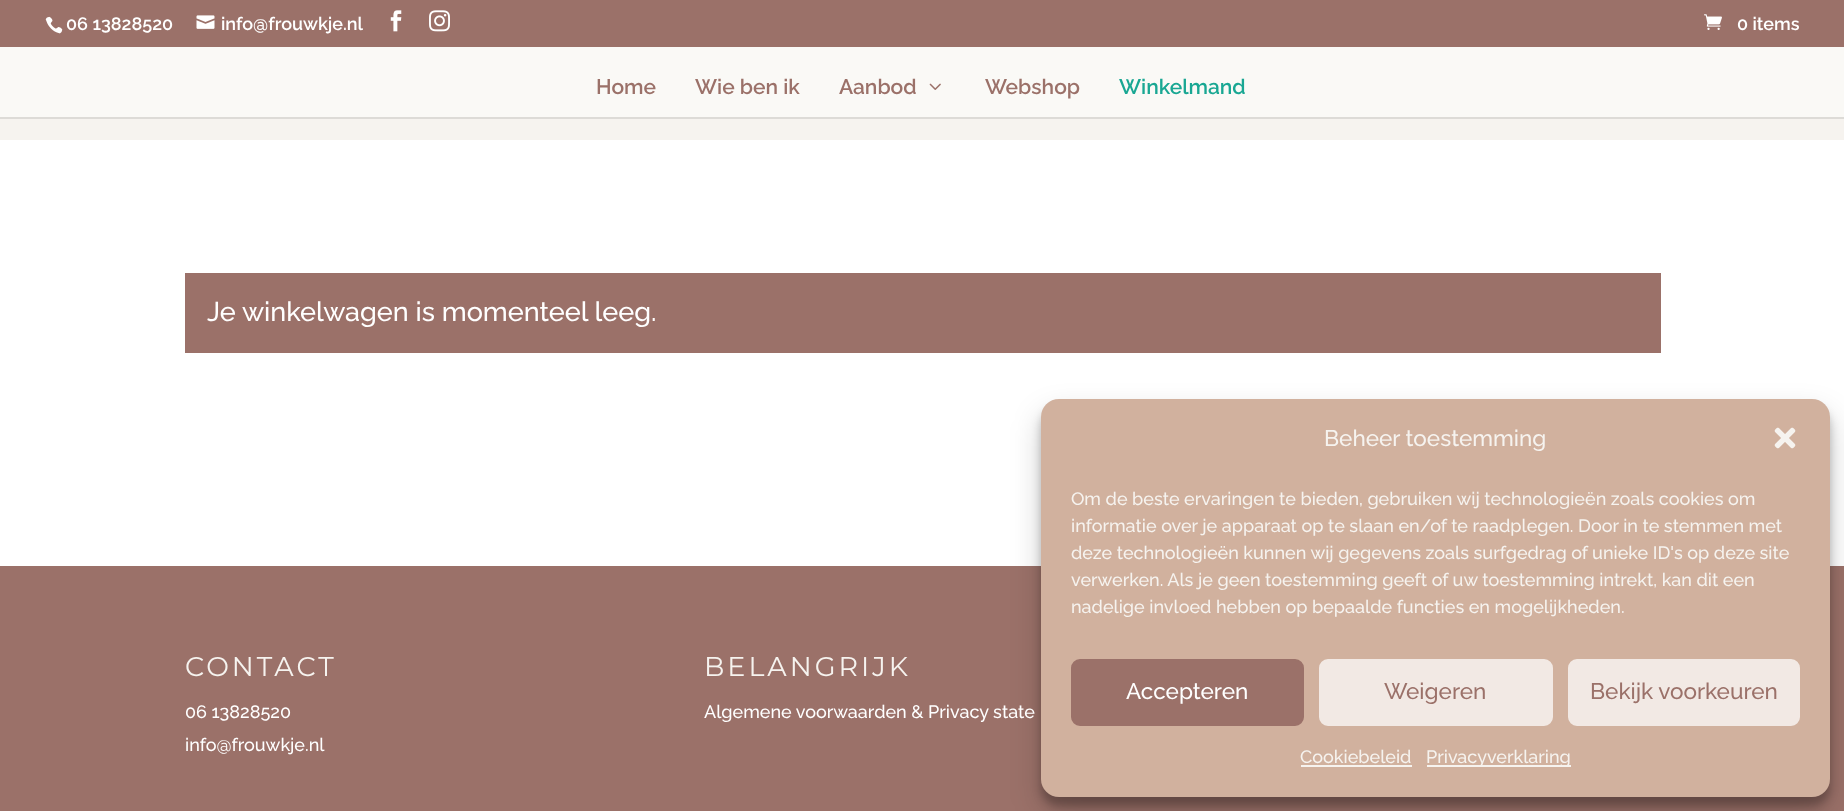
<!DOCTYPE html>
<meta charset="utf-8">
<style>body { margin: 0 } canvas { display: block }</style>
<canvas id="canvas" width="1844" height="811"></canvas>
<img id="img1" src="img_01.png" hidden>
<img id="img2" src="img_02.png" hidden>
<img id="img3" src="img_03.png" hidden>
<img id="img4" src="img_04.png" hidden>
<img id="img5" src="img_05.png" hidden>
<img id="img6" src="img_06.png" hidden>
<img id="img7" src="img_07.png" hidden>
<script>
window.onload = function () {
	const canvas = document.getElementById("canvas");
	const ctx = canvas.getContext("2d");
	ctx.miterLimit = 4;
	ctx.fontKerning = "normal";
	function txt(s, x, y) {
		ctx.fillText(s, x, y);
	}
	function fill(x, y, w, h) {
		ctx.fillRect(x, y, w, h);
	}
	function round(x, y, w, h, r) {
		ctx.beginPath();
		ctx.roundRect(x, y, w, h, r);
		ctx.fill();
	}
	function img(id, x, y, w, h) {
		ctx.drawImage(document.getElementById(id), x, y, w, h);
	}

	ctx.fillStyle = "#F6F3EF";
	fill(0, 0, 1844, 811);
	ctx.fillStyle = "#9B7169";
	fill(0, 0, 1844, 47);
	img("img1", 45, 16, 18, 18);
	img("img2", 196, 15, 19, 14);
	img("img3", 390, 10, 12, 22);
	img("img4", 429, 10, 21, 22);
	img("img5", 1704, 14, 18, 16);
	ctx.fillStyle = "#DDDBD7";
	fill(0, 117, 1844, 2);
	ctx.fillStyle = "#FAF9F6";
	fill(0, 47, 1844, 70);
	img("img6", 929, 83, 12, 7);
	ctx.fillStyle = "#FFFFFF";
	fill(0, 140, 1844, 426);
	ctx.fillStyle = "#9B7169";
	fill(185, 273, 1476, 80);
	fill(0, 566, 1844, 245);
	ctx.fillStyle = "rgba(0, 0, 0, 0.23)";
	ctx.filter = "blur(4.5px)";
	ctx.beginPath();
	ctx.roundRect(1041, 408, 789, 398, 18);
	ctx.fill();
	ctx.filter = "none";
	ctx.fillStyle = "rgba(0, 0, 0, 0.19)";
	ctx.filter = "blur(15px)";
	ctx.beginPath();
	ctx.roundRect(1041, 414, 789, 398, 18);
	ctx.fill();
	ctx.filter = "none";
	ctx.fillStyle = "#D1B19E";
	round(1041, 399, 789, 398, 18);
	img("img7", 1774, 427, 22, 22);
	ctx.fillStyle = "#9B7169";
	ctx.beginPath();
	ctx.roundRect(1072, 660, 231, 65, 8);
	ctx.fill();
	ctx.strokeStyle = "#9B7169";
	ctx.lineWidth = 2;
	ctx.stroke();
	ctx.fillStyle = "#F2E9E4";
	ctx.beginPath();
	ctx.roundRect(1320, 660, 232, 65, 8);
	ctx.fill();
	ctx.strokeStyle = "#F2E9E4";
	ctx.stroke();
	ctx.beginPath();
	ctx.roundRect(1569, 660, 230, 65, 8);
	ctx.fill();
	ctx.stroke();
	ctx.fillStyle = "#F6F3EF";
	fill(1301, 765, 111, 2);
	fill(1427, 765, 144, 2);
	ctx.font = "100 18px 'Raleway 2'";
	ctx.fillStyle = "#FFFFFF";
	txt("06 13828520", 66, 30);
	txt("info@frouwkje.nl", 221, 30);
	txt("0 items", 1737, 30);
	ctx.font = "100 21px 'Raleway 2'";
	ctx.fillStyle = "#9B7169";
	txt("Home", 596, 94);
	txt("Wie ben ik", 695, 94);
	txt("Aanbod", 839, 94);
	txt("Webshop", 985, 94);
	ctx.fillStyle = "#19A793";
	txt("Winkelmand", 1119, 94);
	ctx.font = "100 27px Raleway";
	ctx.fillStyle = "#FFFFFF";
	txt("Je winkelwagen is momenteel leeg.", 207, 321);
	ctx.letterSpacing = "3px";
	ctx.font = "100 27px Montserrat";
	ctx.fillStyle = "#F6F3EF";
	txt("CONTACT", 185, 676);
	ctx.letterSpacing = "0px";
	ctx.font = "100 18px Raleway";
	ctx.fillStyle = "#FFFFFF";
	txt("06 13828520", 185, 718);
	txt("info@frouwkje.nl", 185, 751);
	ctx.letterSpacing = "3px";
	ctx.font = "100 27px Montserrat";
	ctx.fillStyle = "#F6F3EF";
	txt("BELANGRIJK", 704, 676);
	ctx.letterSpacing = "0px";
	ctx.font = "100 18px Raleway";
	ctx.fillStyle = "#FFFFFF";
	txt("Algemene voorwaarden & Privacy state", 704, 718);
	ctx.font = "100 22.5px Raleway";
	ctx.fillStyle = "#F6F3EF";
	txt("Beheer toestemming", 1324, 446);
	ctx.font = "100 18px Raleway";
	txt("Om de beste ervaringen te bieden, gebruiken wij technologieën zoals cookies om", 1071, 505);
	txt("informatie over je apparaat op te slaan en/of te raadplegen. Door in te stemmen met", 1071, 532);
	txt("deze technologieën kunnen wij gegevens zoals surfgedrag of unieke ID's op deze site", 1071, 559);
	txt("verwerken. Als je geen toestemming geeft of uw toestemming intrekt, kan dit een", 1071, 586);
	txt("nadelige invloed hebben op bepaalde functies en mogelijkheden.", 1071, 613);
	ctx.font = "100 22.5px Raleway";
	ctx.fillStyle = "#FFFFFF";
	txt("Accepteren", 1126, 699);
	ctx.fillStyle = "#9B7169";
	txt("Weigeren", 1384, 699);
	txt("Bekijk voorkeuren", 1590, 699);
	ctx.font = "100 18px Raleway";
	ctx.fillStyle = "#F6F3EF";
	txt("Cookiebeleid", 1300, 763);
	txt("Privacyverklaring", 1426, 763);
};
</script>
